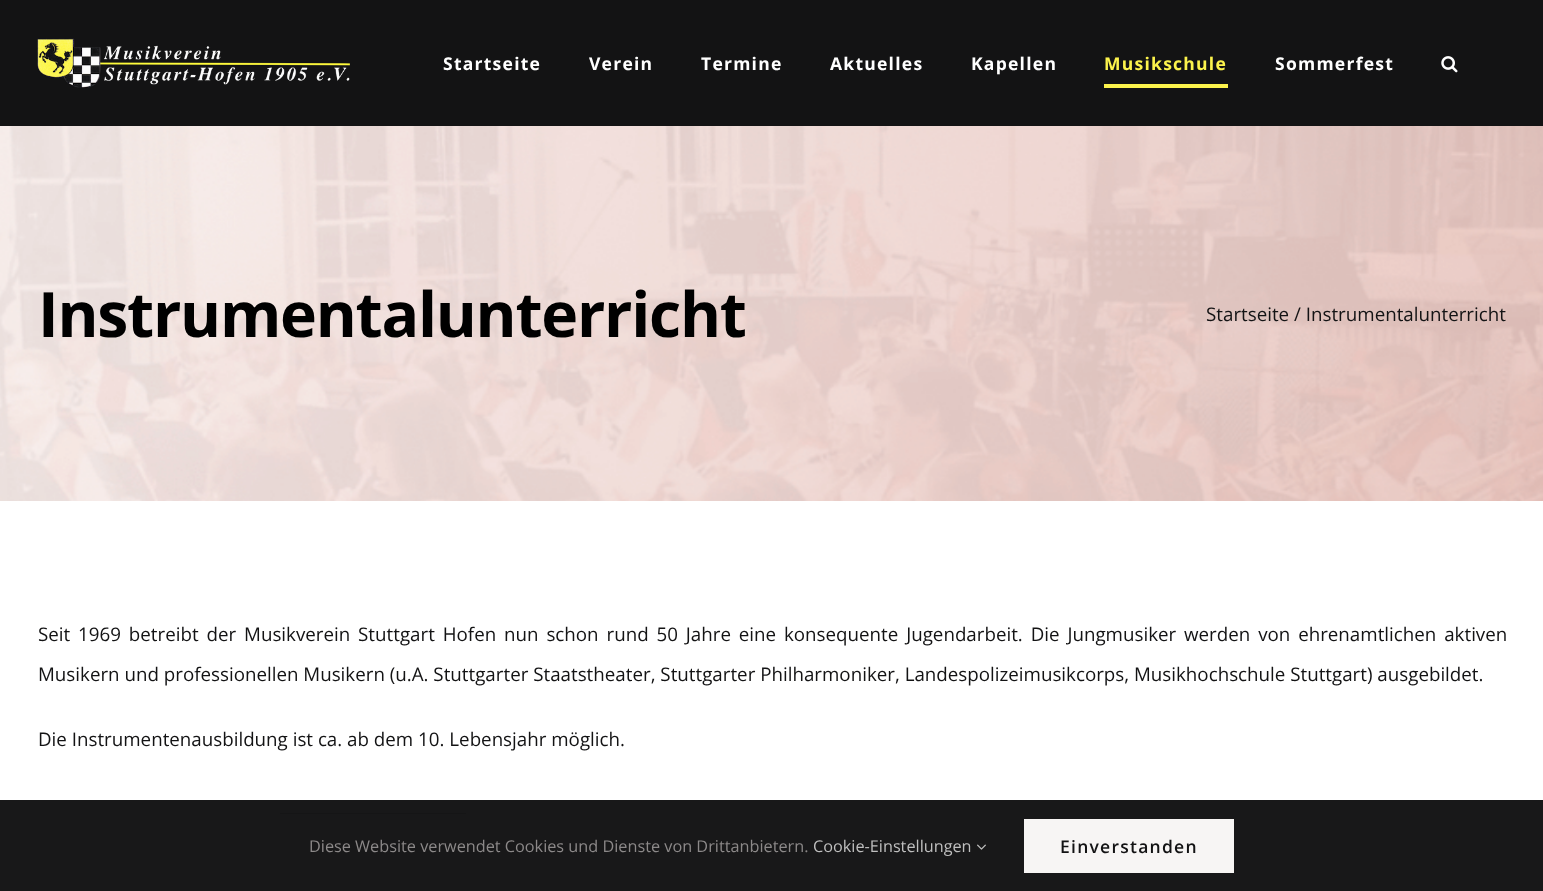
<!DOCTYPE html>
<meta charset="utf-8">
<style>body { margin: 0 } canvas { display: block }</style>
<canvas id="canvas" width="1543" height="891"></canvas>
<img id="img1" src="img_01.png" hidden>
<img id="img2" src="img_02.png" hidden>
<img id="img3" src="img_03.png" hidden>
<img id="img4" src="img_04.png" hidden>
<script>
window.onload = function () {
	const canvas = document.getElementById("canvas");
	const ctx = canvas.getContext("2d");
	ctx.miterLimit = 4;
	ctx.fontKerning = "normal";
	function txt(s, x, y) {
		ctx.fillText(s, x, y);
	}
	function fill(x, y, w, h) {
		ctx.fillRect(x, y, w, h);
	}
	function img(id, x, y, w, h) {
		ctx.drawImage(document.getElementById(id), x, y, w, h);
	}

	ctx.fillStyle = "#FFFFFF";
	fill(0, 0, 1543, 891);
	ctx.fillStyle = "#131314";
	fill(0, 0, 1543, 126);
	img("img1", 37, 38, 313, 50);
	ctx.fillStyle = "#FCF34C";
	fill(1104, 84, 124, 4);
	img("img2", 1441, 56, 17, 17);
	img("img3", 0, 126, 1543, 375);
	ctx.fillStyle = "#717172";
	fill(280, 813, 186, 1);
	ctx.fillStyle = "rgba(19, 19, 20, 0.98)";
	fill(0, 800, 1543, 91);
	img("img4", 977, 844, 9, 6);
	ctx.fillStyle = "#F7F5F4";
	fill(1024, 819, 210, 54);
	ctx.letterSpacing = "1.25px";
	ctx.font = "bold 17.5px Open Sans";
	ctx.fillStyle = "#FFFFFF";
	txt("Startseite", 443, 70);
	txt("Verein", 589, 70);
	txt("Termine", 701, 70);
	txt("Aktuelles", 830, 70);
	txt("Kapellen", 971, 70);
	ctx.fillStyle = "#FCF34C";
	txt("Musikschule", 1104, 70);
	ctx.fillStyle = "#FFFFFF";
	txt("Sommerfest", 1275, 70);
	ctx.letterSpacing = "-1.25px";
	ctx.font = "bold 62.5px Open Sans";
	ctx.fillStyle = "#000000";
	txt("Instrumentalunterricht", 38, 337);
	ctx.letterSpacing = "0px";
	ctx.font = "18.75px Open Sans";
	ctx.fillStyle = "#131314";
	txt("Startseite / Instrumentalunterricht", 1206, 321);
	ctx.wordSpacing = "3px";
	txt("Seit 1969 betreibt der Musikverein Stuttgart Hofen nun schon rund 50 Jahre eine konsequente Jugendarbeit. Die Jungmusiker werden von ehrenamtlichen aktiven", 38, 641);
	ctx.wordSpacing = "0px";
	txt("Musikern und professionellen Musikern (u.A. Stuttgarter Staatstheater, Stuttgarter Philharmoniker, Landespolizeimusikcorps, Musikhochschule Stuttgart) ausgebildet.", 38, 681);
	txt("Die Instrumentenausbildung ist ca. ab dem 10. Lebensjahr möglich.", 38, 746);
	ctx.font = "16.25px Open Sans";
	ctx.fillStyle = "#8C8989";
	txt("Diese Website verwendet Cookies und Dienste von Drittanbietern.", 309, 852);
	ctx.fillStyle = "#BFBFBF";
	txt("Cookie-Einstellungen", 813, 852);
	ctx.letterSpacing = "1.25px";
	ctx.font = "600 17.5px Open Sans";
	ctx.fillStyle = "#131314";
	txt("Einverstanden", 1060, 853);
};
</script>
